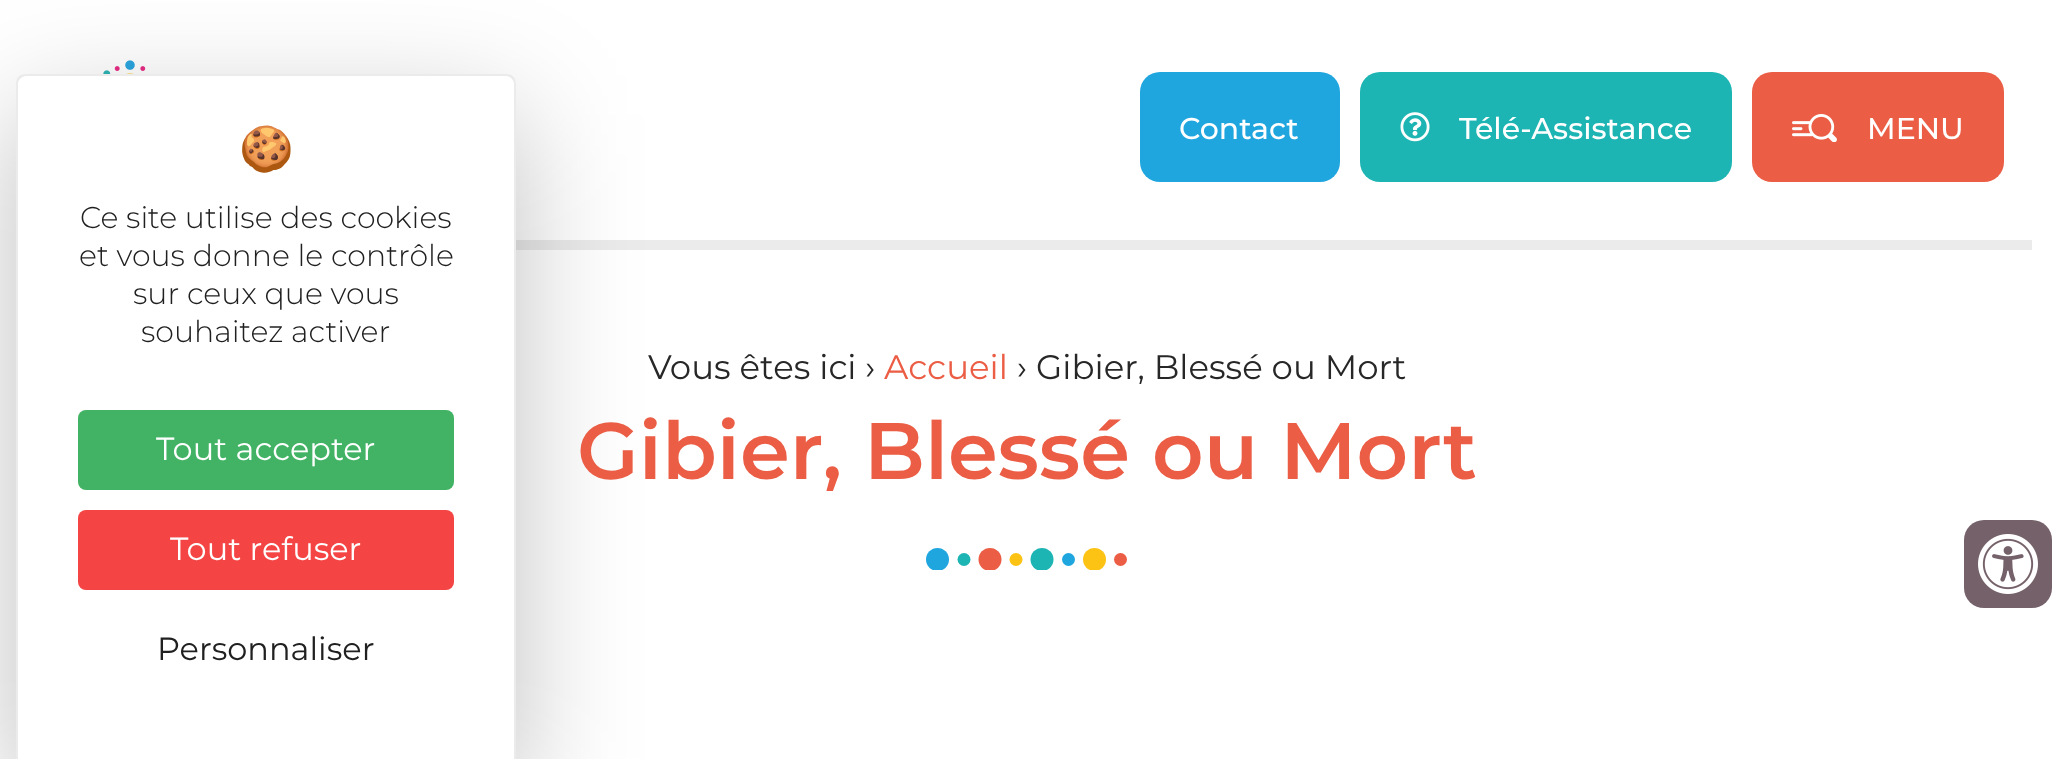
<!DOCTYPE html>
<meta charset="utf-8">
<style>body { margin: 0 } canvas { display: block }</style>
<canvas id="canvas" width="2053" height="759"></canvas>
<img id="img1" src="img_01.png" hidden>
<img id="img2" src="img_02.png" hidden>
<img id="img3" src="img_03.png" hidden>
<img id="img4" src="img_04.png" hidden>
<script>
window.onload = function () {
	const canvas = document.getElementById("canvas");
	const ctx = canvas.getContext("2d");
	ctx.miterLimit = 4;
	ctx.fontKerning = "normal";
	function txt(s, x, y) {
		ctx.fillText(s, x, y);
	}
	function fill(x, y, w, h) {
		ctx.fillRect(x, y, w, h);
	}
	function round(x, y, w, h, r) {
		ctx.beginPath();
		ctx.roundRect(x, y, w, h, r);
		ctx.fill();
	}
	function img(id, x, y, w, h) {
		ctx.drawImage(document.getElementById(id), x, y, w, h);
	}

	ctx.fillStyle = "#FFFFFF";
	fill(0, 0, 2053, 759);
	img("img1", 103, 60, 43, 14);
	ctx.fillStyle = "#EBEBEB";
	fill(516, 240, 1516, 10);
	ctx.fillStyle = "rgba(0, 0, 0, 0.25)";
	ctx.filter = "blur(60px)";
	ctx.beginPath();
	ctx.roundRect(16, 114, 500, 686, 10);
	ctx.fill();
	ctx.filter = "none";
	ctx.fillStyle = "#FFFFFF";
	ctx.beginPath();
	ctx.moveTo(26, 74);
	ctx.lineTo(506, 74);
	ctx.bezierCurveTo(511.5, 74, 516, 78.5, 516, 84);
	ctx.lineTo(516, 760);
	ctx.lineTo(16, 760);
	ctx.lineTo(16, 84);
	ctx.bezierCurveTo(16, 78.5, 20.5, 74, 26, 74);
	ctx.closePath();
	ctx.fill();
	ctx.fillStyle = "rgba(0, 0, 0, 0.08)";
	ctx.beginPath();
	ctx.moveTo(26, 74);
	ctx.lineTo(506, 74);
	ctx.bezierCurveTo(512, 74, 516, 78, 516, 84);
	ctx.lineTo(516, 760);
	ctx.lineTo(16, 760);
	ctx.lineTo(16, 84);
	ctx.bezierCurveTo(16, 78, 20, 74, 26, 74);
	ctx.closePath();
	ctx.moveTo(26, 76);
	ctx.lineTo(506, 76);
	ctx.bezierCurveTo(510, 76, 514, 80, 514, 84);
	ctx.lineTo(514, 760);
	ctx.lineTo(18, 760);
	ctx.lineTo(18, 84);
	ctx.bezierCurveTo(18, 80, 22, 76, 26, 76);
	ctx.closePath();
	ctx.fill("evenodd");
	ctx.fillStyle = "#42B364";
	round(78, 410, 376, 80, 8);
	ctx.fillStyle = "#F54444";
	round(78, 510, 376, 80, 8);
	ctx.fillStyle = "#1FA6DF";
	round(1140, 72, 200, 110, 20);
	ctx.fillStyle = "#1DB5B3";
	round(1360, 72, 372, 110, 20);
	img("img2", 1400, 112, 30, 30);
	ctx.fillStyle = "#EB5D44";
	round(1752, 72, 252, 110, 20);
	img("img3", 1792, 114, 45, 28);
	ctx.save();
	ctx.beginPath();
	ctx.rect(926, 548, 202, 22);
	ctx.clip();
	ctx.beginPath();
	ctx.arc(990, 559.5, 11.5, 0, Math.PI * 2);
	ctx.fill();
	ctx.fillStyle = "#1FA6DF";
	ctx.beginPath();
	ctx.arc(937.5, 559.5, 11.5, 0, Math.PI * 2);
	ctx.fill();
	ctx.restore();
	ctx.fillStyle = "#FDC314";
	ctx.beginPath();
	ctx.arc(1016, 559.5, 6.5, 0, Math.PI * 2);
	ctx.fill();
	ctx.fillStyle = "#1DB5B3";
	ctx.beginPath();
	ctx.arc(964, 559.5, 6.5, 0, Math.PI * 2);
	ctx.fill();
	ctx.save();
	ctx.beginPath();
	ctx.rect(926, 548, 202, 22);
	ctx.clip();
	ctx.fillStyle = "#FDC314";
	ctx.beginPath();
	ctx.arc(1094.5, 559.5, 11.5, 0, Math.PI * 2);
	ctx.fill();
	ctx.fillStyle = "#1DB5B3";
	ctx.beginPath();
	ctx.arc(1042, 559.5, 11.5, 0, Math.PI * 2);
	ctx.fill();
	ctx.restore();
	ctx.fillStyle = "#EB5D44";
	ctx.beginPath();
	ctx.arc(1120.5, 559.5, 6.5, 0, Math.PI * 2);
	ctx.fill();
	ctx.fillStyle = "#1FA6DF";
	ctx.beginPath();
	ctx.arc(1068.5, 559.5, 6.5, 0, Math.PI * 2);
	ctx.fill();
	ctx.fillStyle = "#756169";
	round(1964, 520, 88, 88, 20);
	img("img4", 1978, 534, 60, 60);
	ctx.font = "44px Noto Color Emoji";
	ctx.fillStyle = "#202020";
	txt("🍪", 239, 164);
	ctx.font = "300 30px Montserrat";
	txt("Ce site utilise des cookies", 80, 228);
	txt("et vous donne le contrôle", 79, 266);
	txt("sur ceux que vous", 133, 304);
	txt("souhaitez activer", 141, 342);
	ctx.font = "32px Montserrat";
	ctx.fillStyle = "#FFFFFF";
	txt("Tout accepter", 156, 460);
	txt("Tout refuser", 170, 560);
	ctx.fillStyle = "#202020";
	txt("Personnaliser", 157, 660);
	ctx.font = "500 30px Montserrat";
	ctx.fillStyle = "#FFFFFF";
	txt("Contact", 1179, 139);
	txt("Télé-Assistance", 1459, 139);
	txt("MENU", 1867, 139);
	ctx.font = "34px Montserrat";
	ctx.fillStyle = "#272727";
	txt("Vous êtes ici ›", 648, 379);
	ctx.fillStyle = "#EB5D44";
	txt("Accueil", 884, 379);
	ctx.fillStyle = "#272727";
	txt("› Gibier, Blessé ou Mort", 1017, 379);
	ctx.font = "600 80px Montserrat";
	ctx.fillStyle = "#EB5D44";
	txt("Gibier, Blessé ou Mort", 577, 479);
};
</script>
